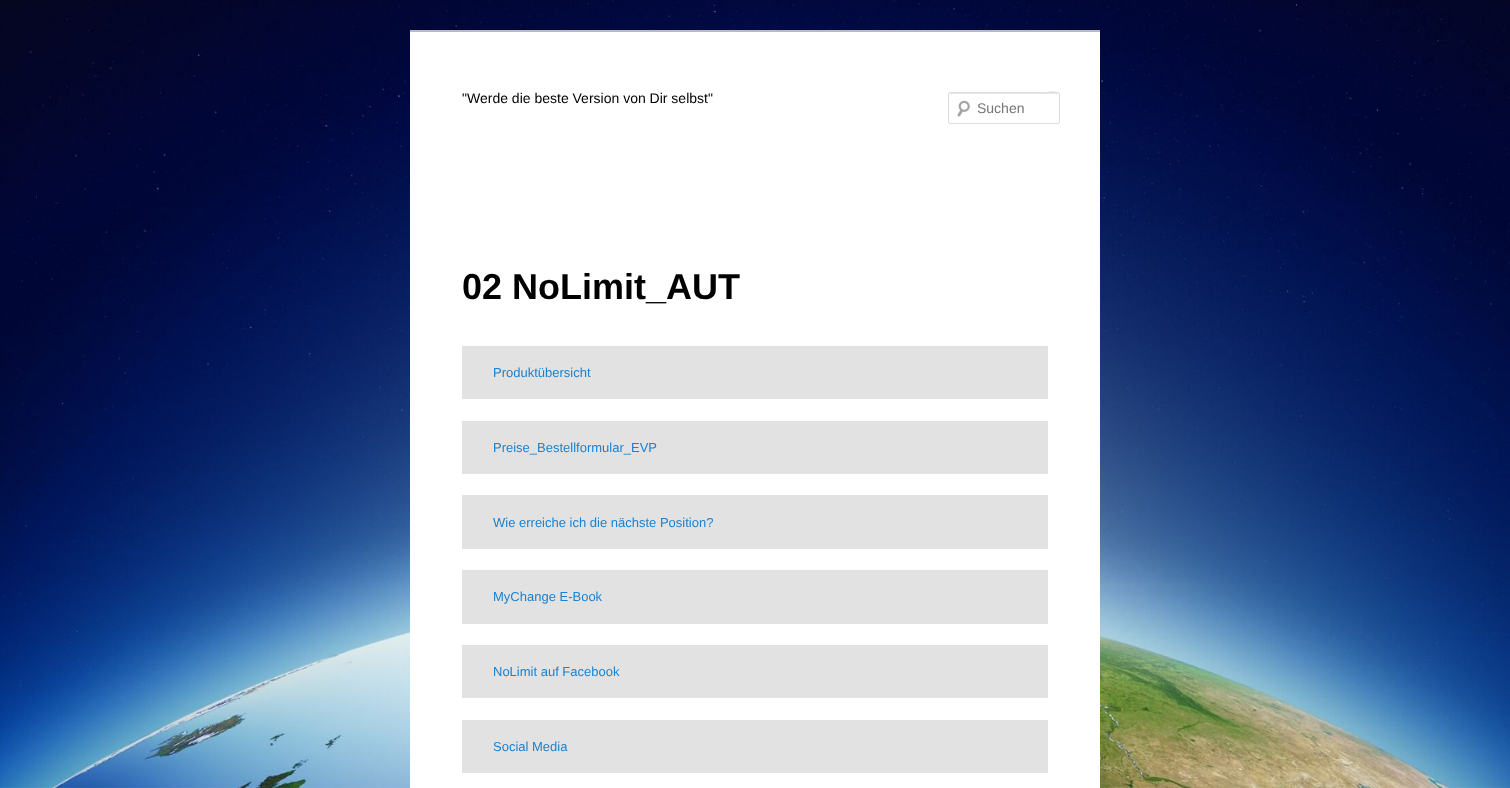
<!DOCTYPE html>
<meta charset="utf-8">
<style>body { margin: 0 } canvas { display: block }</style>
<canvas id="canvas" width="1510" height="788"></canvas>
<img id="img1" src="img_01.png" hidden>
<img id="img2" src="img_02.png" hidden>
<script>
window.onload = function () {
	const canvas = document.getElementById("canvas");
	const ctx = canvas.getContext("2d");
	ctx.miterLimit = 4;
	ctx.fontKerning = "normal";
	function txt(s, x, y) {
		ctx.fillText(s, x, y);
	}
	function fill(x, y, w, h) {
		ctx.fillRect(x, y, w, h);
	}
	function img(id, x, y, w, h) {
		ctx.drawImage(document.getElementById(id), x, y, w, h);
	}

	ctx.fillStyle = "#FFFFFF";
	fill(0, 0, 1510, 788);
	img("img1", 0, 0, 1510, 788);
	fill(410, 32, 690, 756);
	ctx.fillStyle = "#BBBBBB";
	fill(410, 30, 690, 2);
	img("img2", 957, 100, 13, 17);
	ctx.fillStyle = "#E6E6E6";
	ctx.beginPath();
	ctx.moveTo(950, 94);
	ctx.lineTo(1059, 94);
	ctx.lineTo(1059, 95);
	ctx.bezierCurveTo(1059, 88, 1044, 93, 1040, 93);
	ctx.lineTo(950, 93);
	ctx.lineTo(949, 95);
	ctx.bezierCurveTo(949, 94, 949, 94, 950, 94);
	ctx.closePath();
	ctx.fill();
	ctx.beginPath();
	ctx.roundRect(948.5, 92.5, 111, 31, 1.5);
	ctx.strokeStyle = "#DDDDDD";
	ctx.stroke();
	ctx.fillStyle = "#E2E2E2";
	fill(462, 346, 586, 53);
	fill(462, 421, 586, 53);
	fill(462, 495, 586, 54);
	fill(462, 570, 586, 54);
	fill(462, 645, 586, 53);
	fill(462, 720, 586, 53);
	ctx.font = "14px Liberation Sans";
	ctx.fillStyle = "#000000";
	txt("\"Werde die beste Version von Dir selbst\"", 462, 103);
	ctx.fillStyle = "#757575";
	txt("Suchen", 977, 113);
	ctx.font = "bold 36px Liberation Sans";
	ctx.fillStyle = "#000000";
	txt("02 NoLimit_AUT", 462, 299);
	ctx.font = "13px Liberation Sans";
	ctx.fillStyle = "#1982D1";
	txt("Produktübersicht", 493, 377);
	txt("Preise_Bestellformular_EVP", 493, 452);
	txt("Wie erreiche ich die nächste Position?", 493, 527);
	txt("MyChange E-Book", 493, 601);
	txt("NoLimit auf Facebook", 493, 676);
	txt("Social Media", 493, 751);
};
</script>
